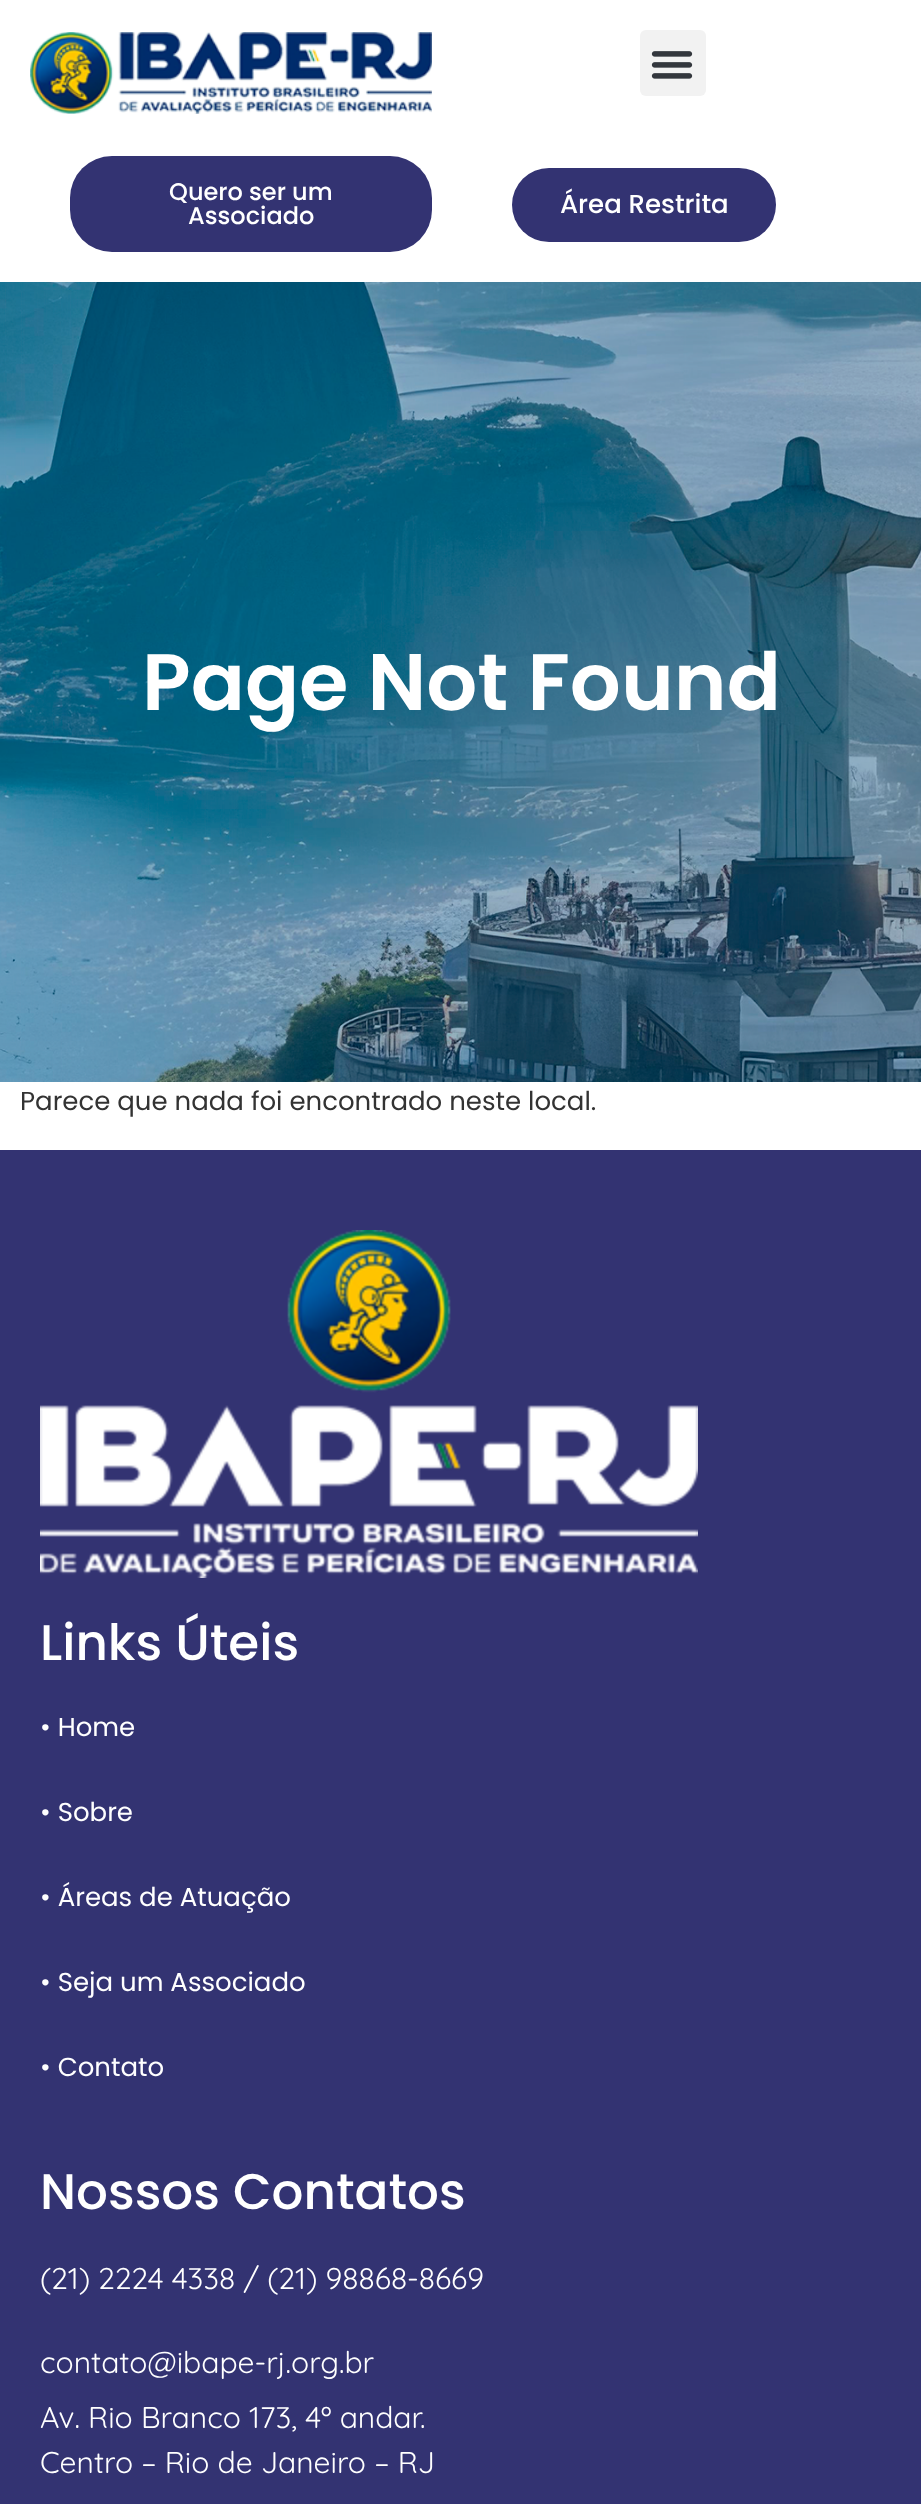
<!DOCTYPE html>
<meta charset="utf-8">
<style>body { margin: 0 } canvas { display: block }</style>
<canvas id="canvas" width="921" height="2504"></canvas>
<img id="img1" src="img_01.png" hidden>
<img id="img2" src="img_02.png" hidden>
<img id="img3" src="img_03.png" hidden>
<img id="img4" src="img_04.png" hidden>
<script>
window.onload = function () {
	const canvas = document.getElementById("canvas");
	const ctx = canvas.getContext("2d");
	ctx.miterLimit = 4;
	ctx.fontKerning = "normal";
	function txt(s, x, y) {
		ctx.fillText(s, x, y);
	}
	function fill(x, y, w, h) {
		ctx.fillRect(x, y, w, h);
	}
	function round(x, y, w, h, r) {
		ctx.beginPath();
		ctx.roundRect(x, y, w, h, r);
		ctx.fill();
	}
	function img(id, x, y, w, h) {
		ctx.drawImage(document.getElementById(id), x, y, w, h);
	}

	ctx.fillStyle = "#FFFFFF";
	fill(0, 0, 921, 2504);
	img("img1", 30, 32, 402, 82);
	ctx.fillStyle = "#F2F2F2";
	round(640, 30, 66, 66, 6);
	img("img2", 651, 51, 42, 28);
	ctx.fillStyle = "#333372";
	round(70, 156, 362, 96, 42);
	round(512, 168, 264, 74, 37);
	img("img3", 0, 282, 921, 800);
	fill(0, 1150, 921, 1354);
	img("img4", 40, 1230, 658, 348);
	ctx.font = "500 24px Poppins";
	ctx.fillStyle = "#FFFFFF";
	txt("Quero ser um", 169, 200);
	txt("Associado", 188, 224);
	ctx.font = "500 26px Poppins";
	txt("Área Restrita", 560, 213);
	ctx.font = "600 80px Poppins";
	txt("Page Not Found", 142, 710);
	ctx.font = "26px Poppins";
	ctx.fillStyle = "#333333";
	txt("Parece que nada foi encontrado neste local.", 20, 1110);
	ctx.font = "500 50px Poppins";
	ctx.fillStyle = "#FFFFFF";
	txt("Links Úteis", 40, 1660);
	ctx.font = "26px Poppins";
	txt("• Home", 40, 1736);
	txt("• Sobre", 40, 1821);
	txt("• Áreas de Atuação", 40, 1906);
	txt("• Seja um Associado", 40, 1991);
	txt("• Contato", 40, 2076);
	ctx.font = "500 50px Poppins";
	txt("Nossos Contatos", 40, 2209);
	ctx.font = "30px Quicksand";
	txt("(21) 2224 4338 / (21) 98868-8669", 40, 2289);
	txt("contato@ibape-rj.org.br", 40, 2373);
	txt("Av. Rio Branco 173, 4º andar.", 40, 2428);
	txt("Centro – Rio de Janeiro – RJ", 40, 2473);
};
</script>
